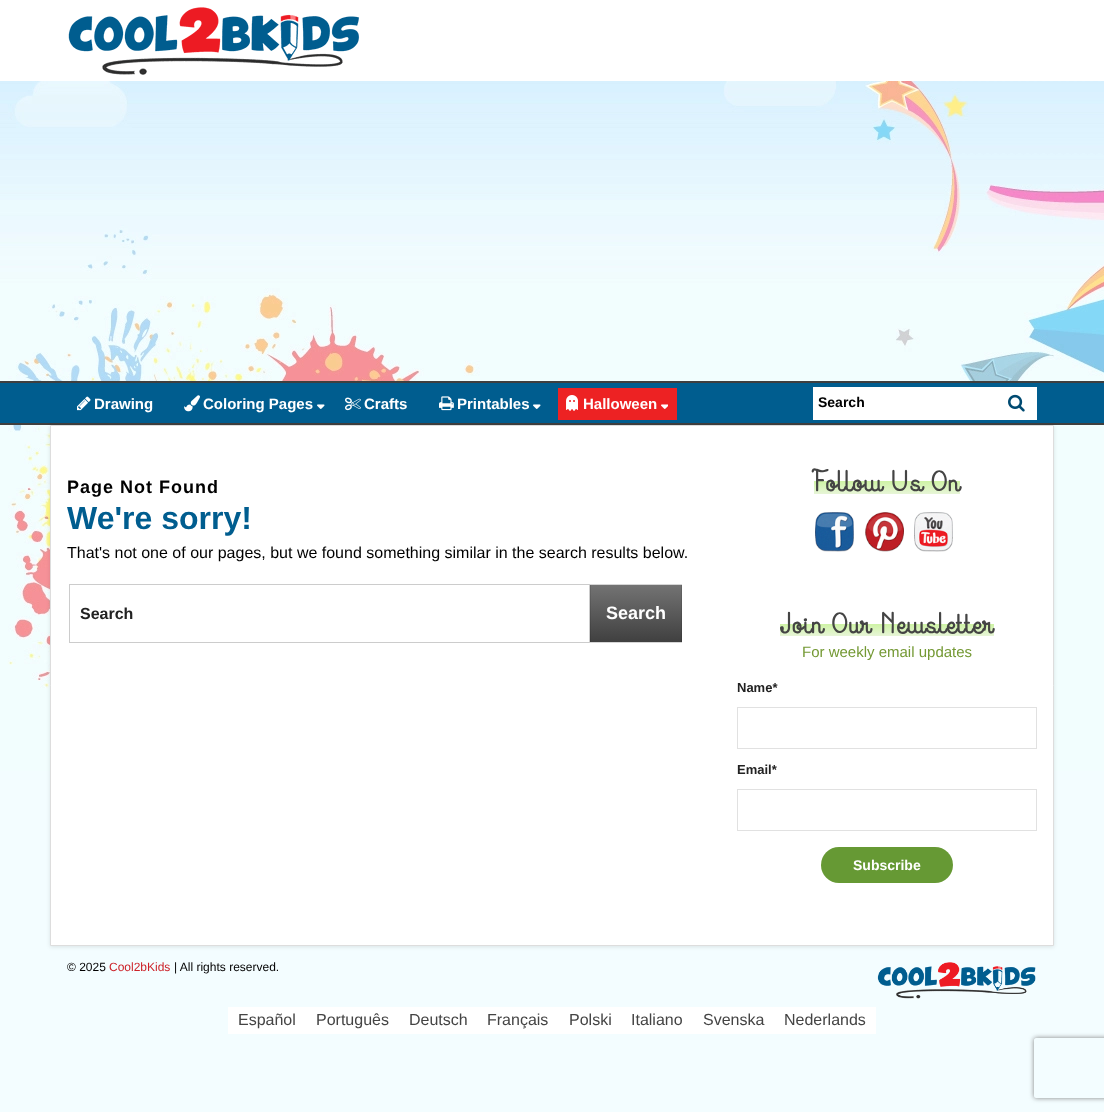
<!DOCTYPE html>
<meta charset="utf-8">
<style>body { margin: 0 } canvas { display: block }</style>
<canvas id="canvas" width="1104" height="1112"></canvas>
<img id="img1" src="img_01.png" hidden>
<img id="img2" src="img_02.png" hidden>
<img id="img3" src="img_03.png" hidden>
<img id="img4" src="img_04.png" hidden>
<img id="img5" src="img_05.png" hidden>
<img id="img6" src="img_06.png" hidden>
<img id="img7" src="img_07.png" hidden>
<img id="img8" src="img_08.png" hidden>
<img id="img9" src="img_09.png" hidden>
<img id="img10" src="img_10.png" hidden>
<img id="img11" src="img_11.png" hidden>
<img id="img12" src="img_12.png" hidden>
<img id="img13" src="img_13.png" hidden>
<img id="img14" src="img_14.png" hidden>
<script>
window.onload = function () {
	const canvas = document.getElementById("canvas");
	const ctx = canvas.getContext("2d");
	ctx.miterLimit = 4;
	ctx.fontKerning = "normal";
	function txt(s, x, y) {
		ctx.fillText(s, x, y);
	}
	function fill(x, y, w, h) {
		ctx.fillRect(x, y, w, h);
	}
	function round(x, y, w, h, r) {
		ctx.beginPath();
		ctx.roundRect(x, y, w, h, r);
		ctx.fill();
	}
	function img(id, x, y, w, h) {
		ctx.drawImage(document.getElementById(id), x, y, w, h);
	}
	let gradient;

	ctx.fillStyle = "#F3FDFF";
	fill(0, 0, 1104, 1112);
	img("img1", 0, 81, 1104, 690);
	ctx.fillStyle = "#FFFFFF";
	fill(0, 0, 1104, 81);
	img("img2", 68, 7, 292, 68);
	ctx.fillStyle = "#005D8F";
	fill(0, 383, 1104, 40);
	ctx.fillStyle = "#3F3F3F";
	fill(0, 381, 1104, 2);
	fill(0, 423, 1104, 2);
	img("img3", 77, 396, 14, 15);
	img("img4", 184, 395, 16, 17);
	img("img5", 317, 404, 8, 5);
	img("img6", 345, 397, 16, 14);
	img("img7", 439, 396, 15, 15);
	img("img5", 533, 404, 8, 5);
	ctx.fillStyle = "#FFFFFF";
	fill(813, 387, 224, 33);
	ctx.fillStyle = "rgba(0, 0, 0, 0.1)";
	ctx.filter = "blur(2px)";
	ctx.beginPath();
	ctx.rect(50, 426, 1004, 521);
	ctx.fill();
	ctx.filter = "none";
	ctx.fillStyle = "#ED2223";
	fill(558, 388, 119, 32);
	img("img8", 566, 395, 12, 16);
	img("img9", 661, 404, 7, 5);
	img("img10", 1008, 394, 17, 18);
	ctx.fillStyle = "#FFFFFF";
	ctx.beginPath();
	ctx.rect(50.5, 425.5, 1003, 520);
	ctx.fill();
	ctx.strokeStyle = "#DDDDDD";
	ctx.stroke();
	ctx.strokeStyle = "#CCCCCC";
	ctx.strokeRect(69.5, 584.5, 520, 58);
	ctx.fillStyle = "#EFEFEF";
	fill(590, 584, 92, 59);
	gradient = ctx.createLinearGradient(636, 585, 636, 642);
	gradient.addColorStop(0, "#737373");
	gradient.addColorStop(1, "#404040");
	ctx.fillStyle = gradient;
	fill(590, 585, 92, 57);
	ctx.strokeStyle = "rgba(0, 0, 0, 0.1)";
	ctx.strokeRect(590.5, 584.5, 91, 58);
	gradient = ctx.createLinearGradient(815, 481, 815, 494);
	gradient.addColorStop(0, "#CEF3A5");
	gradient.addColorStop(1, "#E7F5D7");
	ctx.fillStyle = gradient;
	fill(814, 481, 146, 13);
	img("img11", 815, 512, 39, 40);
	img("img12", 865, 512, 39, 40);
	img("img13", 914, 512, 39, 40);
	gradient = ctx.createLinearGradient(781, 624, 781, 636);
	gradient.addColorStop(0, "#CEF3A5");
	gradient.addColorStop(1, "#E7F5D7");
	ctx.fillStyle = gradient;
	fill(780, 624, 214, 12);
	ctx.strokeStyle = "#E1E1E1";
	ctx.strokeRect(737.5, 707.5, 299, 41);
	ctx.strokeRect(737.5, 789.5, 299, 41);
	ctx.fillStyle = "#669934";
	round(821, 847, 132, 36, 18);
	img("img14", 877, 962, 159, 37);
	ctx.fillStyle = "#FFFFFF";
	fill(228, 1007, 648, 27);
	ctx.save();
	ctx.beginPath();
	ctx.moveTo(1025, 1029);
	ctx.lineTo(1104, 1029);
	ctx.lineTo(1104, 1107);
	ctx.lineTo(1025, 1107);
	ctx.closePath();
	ctx.moveTo(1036, 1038);
	ctx.lineTo(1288, 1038);
	ctx.bezierCurveTo(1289, 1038, 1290, 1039, 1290, 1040);
	ctx.lineTo(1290, 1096);
	ctx.bezierCurveTo(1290, 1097, 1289, 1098, 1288, 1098);
	ctx.lineTo(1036, 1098);
	ctx.bezierCurveTo(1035, 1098, 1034, 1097, 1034, 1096);
	ctx.lineTo(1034, 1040);
	ctx.bezierCurveTo(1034, 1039, 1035, 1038, 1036, 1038);
	ctx.closePath();
	ctx.clip("evenodd");
	ctx.fillStyle = "#808080";
	ctx.filter = "blur(2.5px)";
	ctx.beginPath();
	ctx.roundRect(1034, 1038, 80, 60, 2);
	ctx.fill();
	ctx.filter = "none";
	ctx.restore();
	ctx.font = "bold 15px Liberation Sans";
	txt("Drawing", 94, 409);
	txt("Coloring Pages", 203, 409);
	txt("Crafts", 364, 409);
	txt("Printables", 457, 409);
	txt("Halloween", 583, 409);
	ctx.font = "bold 14px Liberation Sans";
	ctx.fillStyle = "#000000";
	txt("Search", 818, 407);
	ctx.letterSpacing = "1px";
	ctx.font = "bold 18px Liberation Sans";
	txt("Page Not Found", 67, 493);
	ctx.letterSpacing = "0px";
	ctx.font = "bold 32px Liberation Sans";
	ctx.fillStyle = "#005D8F";
	txt("We're sorry!", 67, 529);
	ctx.font = "16px Liberation Sans";
	ctx.fillStyle = "#000000";
	txt("That's not one of our pages, but we found something similar in the search results below.", 67, 558);
	ctx.font = "bold 16px Liberation Sans";
	ctx.fillStyle = "#222222";
	txt("Search", 80, 619);
	ctx.font = "bold 18px Liberation Sans";
	ctx.fillStyle = "#FFFFFF";
	txt("Search", 606, 619);
	ctx.letterSpacing = "1px";
	ctx.font = "bold 32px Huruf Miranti";
	ctx.fillStyle = "#444444";
	txt("Follow Us On", 814, 493);
	txt("Join Our Newsletter", 780, 635);
	ctx.letterSpacing = "0px";
	ctx.font = "15px Liberation Sans";
	ctx.fillStyle = "#749934";
	txt("For weekly email updates", 802, 657);
	ctx.font = "bold 13px Liberation Sans";
	ctx.fillStyle = "#222222";
	txt("Name*", 737, 692);
	txt("Email*", 737, 774);
	ctx.font = "bold 14px Liberation Sans";
	ctx.fillStyle = "#FFFFFF";
	txt("Subscribe", 853, 870);
	ctx.font = "12px Liberation Sans";
	ctx.fillStyle = "#000000";
	txt("© 2025", 67, 971);
	ctx.fillStyle = "#CC2229";
	txt("Cool2bKids", 109, 971);
	ctx.fillStyle = "#000000";
	txt("| All rights reserved.", 174, 971);
	ctx.font = "16px Liberation Sans";
	ctx.fillStyle = "#444444";
	txt("Español", 238, 1025);
	txt("Português", 316, 1025);
	txt("Deutsch", 409, 1025);
	txt("Français", 487, 1025);
	txt("Polski", 569, 1025);
	txt("Italiano", 631, 1025);
	txt("Svenska", 703, 1025);
	txt("Nederlands", 784, 1025);
};
</script>
